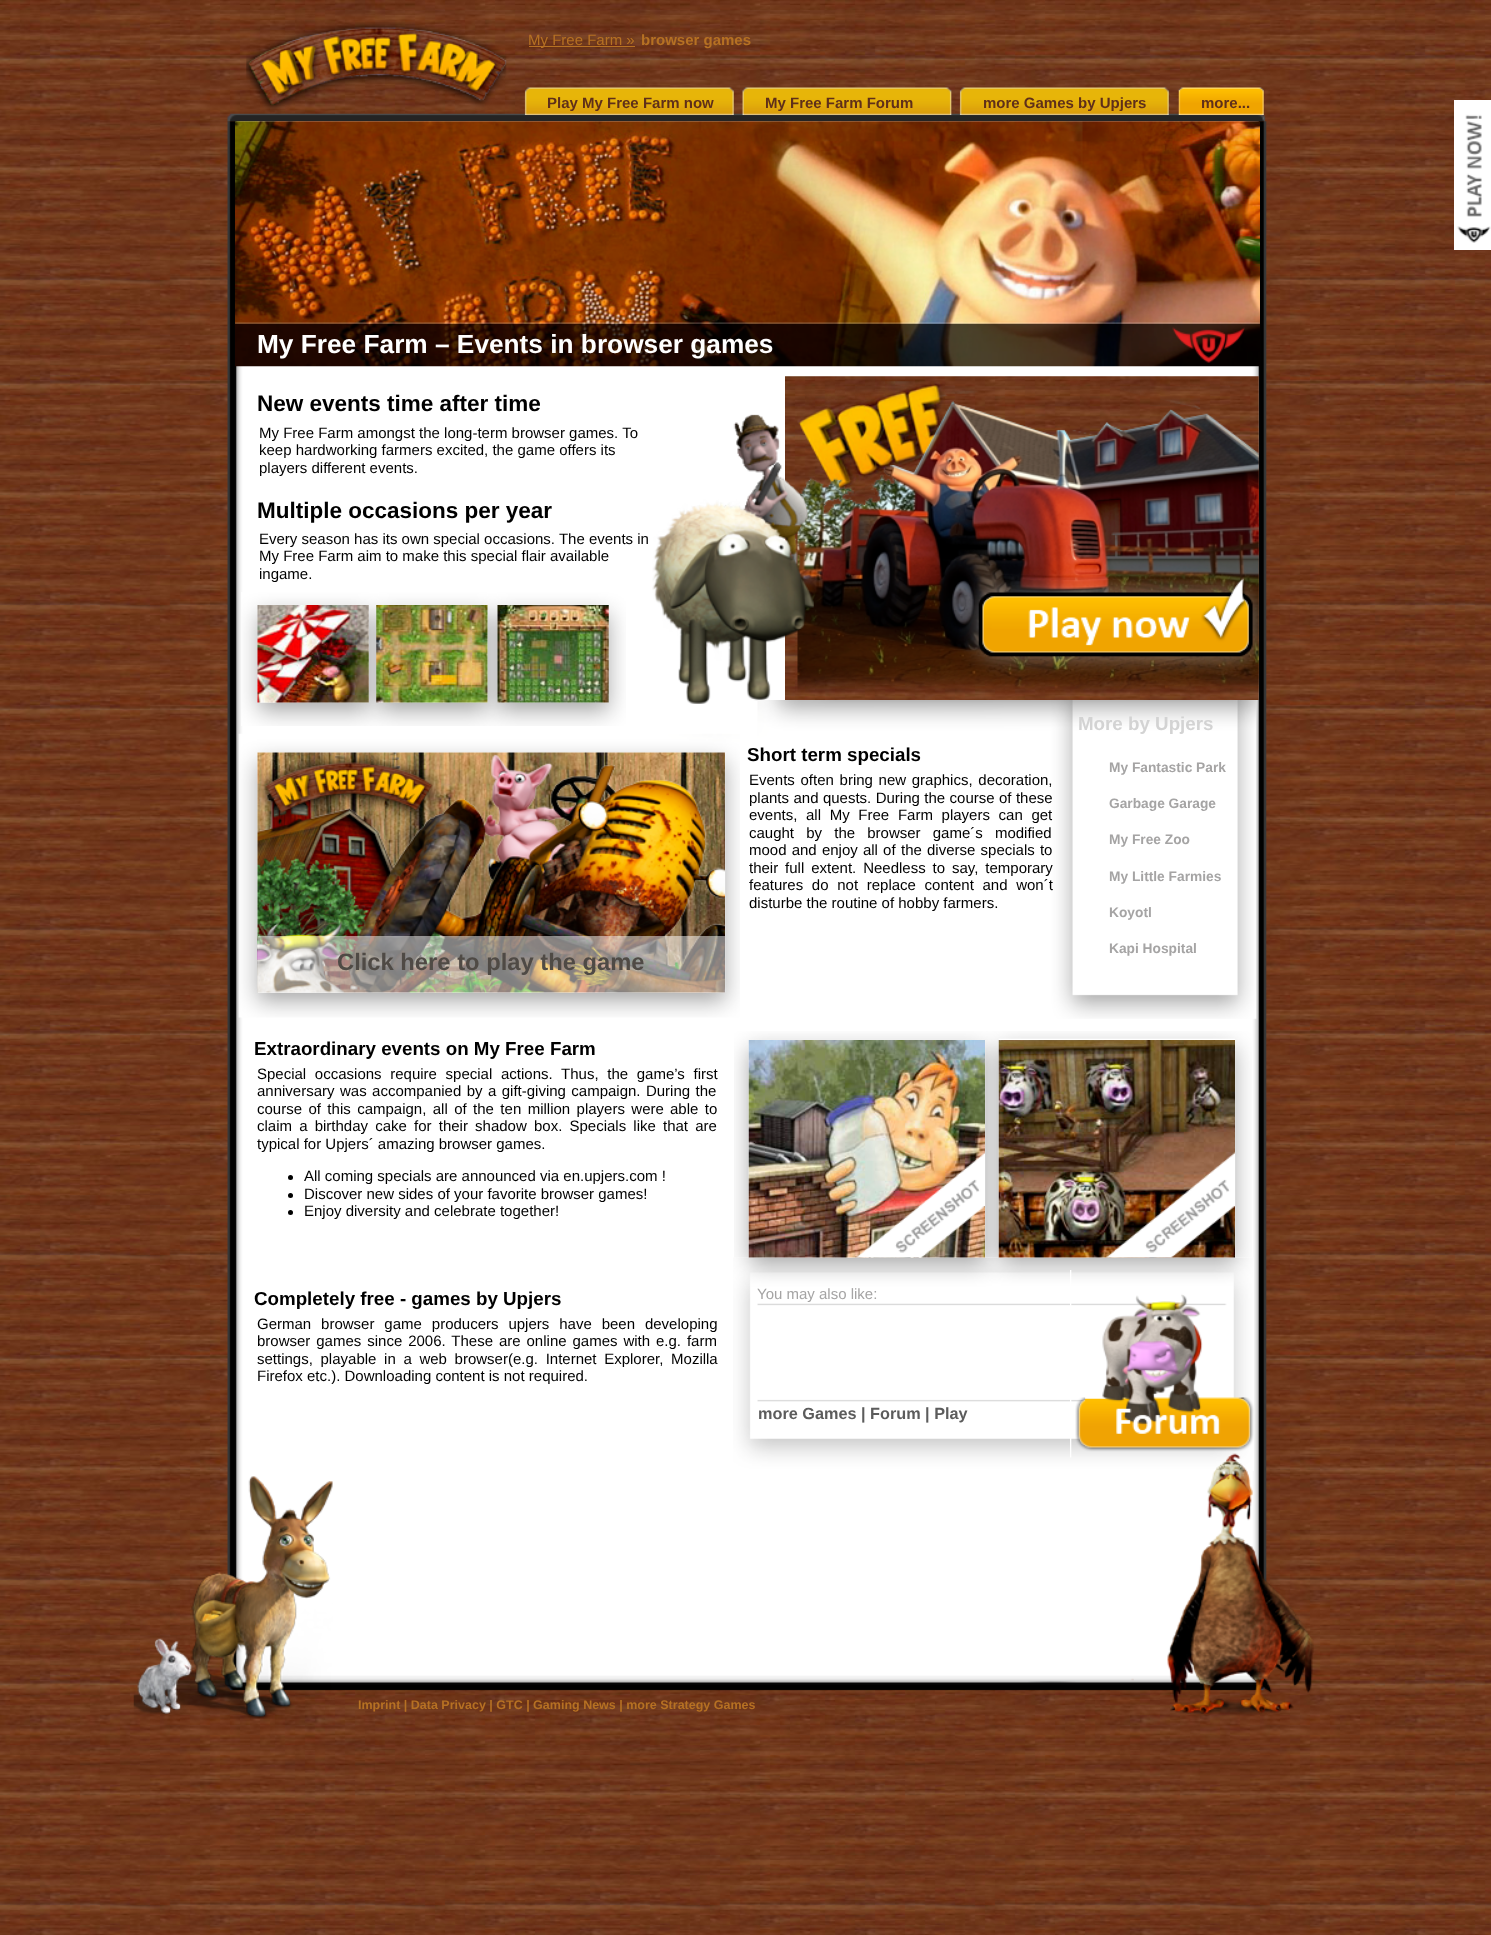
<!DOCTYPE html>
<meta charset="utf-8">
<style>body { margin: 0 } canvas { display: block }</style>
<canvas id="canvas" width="1491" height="1935"></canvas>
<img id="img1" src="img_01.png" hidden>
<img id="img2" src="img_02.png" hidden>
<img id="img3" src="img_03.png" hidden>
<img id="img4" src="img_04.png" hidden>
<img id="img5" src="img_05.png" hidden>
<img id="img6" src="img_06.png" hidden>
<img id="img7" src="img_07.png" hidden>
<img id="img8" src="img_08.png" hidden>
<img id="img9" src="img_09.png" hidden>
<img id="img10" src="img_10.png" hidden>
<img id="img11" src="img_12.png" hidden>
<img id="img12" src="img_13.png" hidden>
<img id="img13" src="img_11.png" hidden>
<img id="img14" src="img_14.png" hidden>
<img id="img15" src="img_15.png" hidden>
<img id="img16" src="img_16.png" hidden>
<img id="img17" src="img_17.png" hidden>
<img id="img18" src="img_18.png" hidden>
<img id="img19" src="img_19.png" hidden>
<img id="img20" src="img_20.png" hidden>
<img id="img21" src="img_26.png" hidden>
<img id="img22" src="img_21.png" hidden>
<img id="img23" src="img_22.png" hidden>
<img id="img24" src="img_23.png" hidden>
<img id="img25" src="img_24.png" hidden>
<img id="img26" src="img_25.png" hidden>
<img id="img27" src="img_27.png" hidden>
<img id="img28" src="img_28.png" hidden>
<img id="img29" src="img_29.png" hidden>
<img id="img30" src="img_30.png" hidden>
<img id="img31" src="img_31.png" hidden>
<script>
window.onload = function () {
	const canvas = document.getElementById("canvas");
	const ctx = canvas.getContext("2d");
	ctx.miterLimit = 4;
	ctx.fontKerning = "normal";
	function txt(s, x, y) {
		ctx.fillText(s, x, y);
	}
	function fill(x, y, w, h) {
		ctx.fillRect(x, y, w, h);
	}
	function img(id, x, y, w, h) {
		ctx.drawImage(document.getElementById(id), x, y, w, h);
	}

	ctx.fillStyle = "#FFFFFF";
	fill(0, 0, 1491, 1935);
	img("img1", 0, 0, 1491, 1935);
	img("img2", 227, 113, 1039, 9);
	img("img3", 246, 22, 261, 90);
	ctx.fillStyle = "#B67123";
	fill(529, 46, 106, 1);
	img("img4", 524, 87, 210, 28);
	img("img5", 742, 87, 210, 28);
	img("img6", 959, 87, 210, 28);
	img("img7", 1178, 87, 86, 28);
	img("img8", 227, 121, 1040, 1557);
	img("img9", 235, 121, 1025, 246);
	img("img10", 1172, 327, 73, 36);
	img("img11", 785, 376, 474, 324);
	img("img12", 797, 381, 462, 312);
	img("img13", 652, 414, 162, 290);
	img("img14", 241, 592, 385, 134);
	img("img15", 257, 605, 112, 98);
	img("img16", 376, 605, 112, 98);
	img("img17", 497, 605, 112, 98);
	img("img18", 757, 700, 500, 319);
	img("img19", 238, 733, 502, 285);
	img("img20", 257, 752, 468, 241);
	ctx.fillStyle = "rgba(255, 255, 255, 0.5)";
	fill(258, 936, 467, 57);
	ctx.fillStyle = "#000000";
	ctx.beginPath();
	ctx.arc(290.5, 1177.5, 2.5, 0, Math.PI * 2);
	ctx.fill();
	ctx.beginPath();
	ctx.arc(290.5, 1195.5, 2.5, 0, Math.PI * 2);
	ctx.fill();
	ctx.beginPath();
	ctx.arc(290.5, 1212.5, 2.5, 0, Math.PI * 2);
	ctx.fill();
	img("img21", 733, 1257, 521, 214);
	img("img22", 734, 1031, 518, 227);
	img("img23", 748, 1040, 237, 218);
	img("img24", 856, 1152, 129, 106);
	img("img25", 998, 1040, 237, 218);
	img("img26", 1106, 1152, 129, 106);
	img("img27", 1070, 1270, 184, 188);
	img("img28", 227, 1675, 1040, 16);
	img("img29", 133, 1476, 200, 243);
	img("img30", 1167, 1453, 147, 263);
	img("img31", 1454, 100, 37, 150);
	ctx.font = "15px Liberation Sans";
	ctx.fillStyle = "#B67123";
	txt("My Free Farm »", 528, 45);
	ctx.font = "bold 15px Liberation Sans";
	txt("browser games", 641, 45);
	ctx.fillStyle = "#5F2F1A";
	txt("Play My Free Farm now", 547, 108);
	txt("My Free Farm Forum", 765, 108);
	txt("more Games by Upjers", 983, 108);
	txt("more...", 1201, 108);
	ctx.font = "bold 26.25px Liberation Sans";
	ctx.fillStyle = "#FFFFFF";
	txt("My Free Farm – Events in browser games", 257, 353);
	ctx.font = "bold 22.5px Liberation Sans";
	ctx.fillStyle = "#000000";
	txt("New events time after time", 257, 411);
	ctx.font = "15px Liberation Sans";
	txt("My Free Farm amongst the long-term browser games. To", 259, 438);
	txt("keep hardworking farmers excited, the game offers its", 259, 455);
	txt("players different events.", 259, 473);
	ctx.font = "bold 22.5px Liberation Sans";
	txt("Multiple occasions per year", 257, 518);
	ctx.font = "15px Liberation Sans";
	txt("Every season has its own special occasions. The events in", 259, 544);
	txt("My Free Farm aim to make this special flair available", 259, 561);
	txt("ingame.", 259, 579);
	ctx.font = "bold 18.75px Liberation Sans";
	txt("Short term specials", 747, 761);
	ctx.wordSpacing = "1.5px";
	ctx.font = "15px Liberation Sans";
	txt("Events often bring new graphics, decoration,", 749, 785);
	ctx.wordSpacing = "0.25px";
	txt("plants and quests. During the course of these", 749, 803);
	ctx.wordSpacing = "4.5px";
	txt("events, all My Free Farm players can get", 749, 820);
	ctx.wordSpacing = "8px";
	txt("caught by the browser game´s modified", 749, 838);
	ctx.wordSpacing = "1px";
	txt("mood and enjoy all of", 749, 855);
	txt("the diverse specials to", 901, 855);
	ctx.wordSpacing = "2.75px";
	txt("their full extent. Needless to say, temporary", 749, 873);
	ctx.wordSpacing = "4.5px";
	txt("features do not replace content and won´t", 749, 890);
	ctx.wordSpacing = "0px";
	txt("disturbe the routine of hobby farmers.", 749, 908);
	ctx.font = "bold 18.75px Liberation Sans";
	ctx.fillStyle = "#D3D3D3";
	txt("More by Upjers", 1078, 730);
	ctx.font = "bold 13.75px Liberation Sans";
	ctx.fillStyle = "#A5A4A4";
	txt("My Fantastic Park", 1109, 772);
	txt("Garbage Garage", 1109, 808);
	txt("My Free Zoo", 1109, 844);
	txt("My Little Farmies", 1109, 881);
	txt("Koyotl", 1109, 917);
	txt("Kapi Hospital", 1109, 953);
	ctx.font = "bold 23.75px Liberation Sans";
	ctx.fillStyle = "#4F4A45";
	txt("Click here to play the game", 337, 970);
	ctx.font = "bold 18.75px Liberation Sans";
	ctx.fillStyle = "#000000";
	txt("Extraordinary events on My Free Farm", 254, 1055);
	ctx.wordSpacing = "4.5px";
	ctx.font = "15px Liberation Sans";
	txt("Special occasions require special actions. Thus, the game’s first", 257, 1079);
	ctx.wordSpacing = "1.25px";
	txt("anniversary was accompanied by a gift-giving campaign. During the", 257, 1096);
	ctx.wordSpacing = "2.25px";
	txt("course of this campaign, all of the ten million players were", 257, 1114);
	txt("able to", 670, 1114);
	ctx.wordSpacing = "3px";
	txt("claim a birthday cake for their shadow box. Specials like that are", 257, 1131);
	ctx.wordSpacing = "0px";
	txt("typical for Upjers´ amazing browser games.", 257, 1149);
	txt("All coming specials are announced via en.upjers.com !", 304, 1181);
	txt("Discover new sides of your favorite browser games!", 304, 1199);
	txt("Enjoy diversity and celebrate together!", 304, 1216);
	ctx.font = "bold 18.75px Liberation Sans";
	txt("Completely free - games by Upjers", 254, 1305);
	ctx.wordSpacing = "5.75px";
	ctx.font = "15px Liberation Sans";
	txt("German browser game producers upjers have been developing", 257, 1329);
	ctx.wordSpacing = "1.75px";
	txt("browser games since 2006. These are online games with e.g. farm", 257, 1346);
	ctx.wordSpacing = "3.5px";
	txt("settings, playable in a web browser(e.g. Internet Explorer, Mozilla", 257, 1364);
	ctx.wordSpacing = "0px";
	txt("Firefox etc.). Downloading content is not required.", 257, 1381);
	ctx.fillStyle = "#A5A4A4";
	txt("You may also like:", 757, 1299);
	ctx.font = "bold 16.25px Liberation Sans";
	ctx.fillStyle = "#5C5C5C";
	txt("more Games | Forum | Play", 758, 1419);
	ctx.font = "bold 12.5px Liberation Sans";
	ctx.fillStyle = "#B67123";
	txt("Imprint | Data Privacy | GTC | Gaming News | more Strategy Games", 358, 1709);
};
</script>
